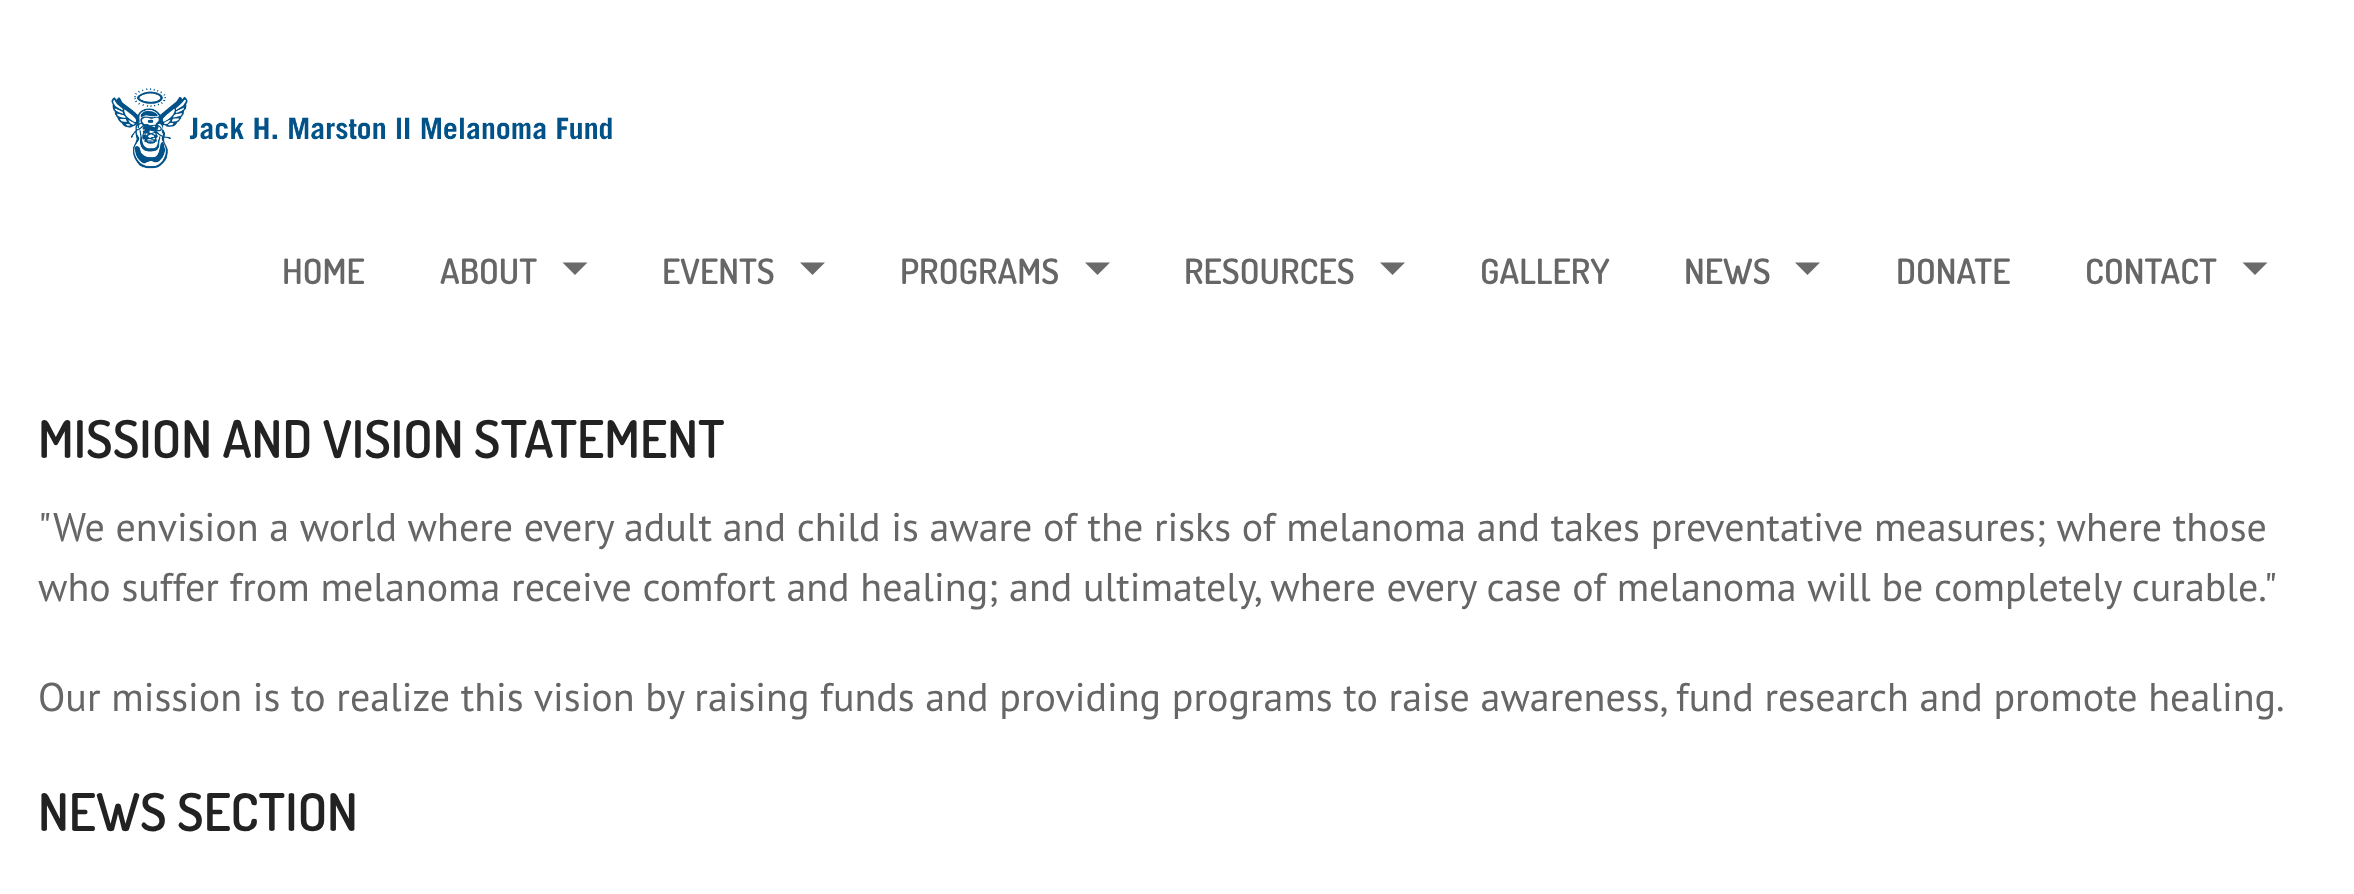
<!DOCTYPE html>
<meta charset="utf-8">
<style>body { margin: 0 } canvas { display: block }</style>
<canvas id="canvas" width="2354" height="894"></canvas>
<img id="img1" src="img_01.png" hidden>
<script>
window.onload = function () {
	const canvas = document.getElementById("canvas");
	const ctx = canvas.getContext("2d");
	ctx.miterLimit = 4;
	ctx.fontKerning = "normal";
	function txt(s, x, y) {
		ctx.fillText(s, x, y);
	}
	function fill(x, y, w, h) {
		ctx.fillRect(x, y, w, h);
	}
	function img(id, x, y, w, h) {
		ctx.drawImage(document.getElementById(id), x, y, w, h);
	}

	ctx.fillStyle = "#FFFFFF";
	fill(0, 0, 2354, 894);
	img("img1", 111, 88, 501, 81);
	ctx.fillStyle = "#6A6A6A";
	ctx.beginPath();
	ctx.moveTo(562.5, 262.5);
	ctx.lineTo(587.5, 262.5);
	ctx.lineTo(575, 275);
	ctx.closePath();
	ctx.fill();
	ctx.beginPath();
	ctx.moveTo(800, 262.5);
	ctx.lineTo(825, 262.5);
	ctx.lineTo(812.5, 275);
	ctx.closePath();
	ctx.fill();
	ctx.beginPath();
	ctx.moveTo(1085, 262.5);
	ctx.lineTo(1110, 262.5);
	ctx.lineTo(1097.5, 275);
	ctx.closePath();
	ctx.fill();
	ctx.beginPath();
	ctx.moveTo(1380, 262.5);
	ctx.lineTo(1405, 262.5);
	ctx.lineTo(1392.5, 275);
	ctx.closePath();
	ctx.fill();
	ctx.beginPath();
	ctx.moveTo(1795, 262.5);
	ctx.lineTo(1820, 262.5);
	ctx.lineTo(1807.5, 275);
	ctx.closePath();
	ctx.fill();
	ctx.beginPath();
	ctx.moveTo(2242.5, 262.5);
	ctx.lineTo(2267.5, 262.5);
	ctx.lineTo(2255, 275);
	ctx.closePath();
	ctx.fill();
	ctx.font = "600 35px Dosis";
	ctx.fillStyle = "#666666";
	txt("HOME", 282, 284);
	txt("ABOUT", 440, 284);
	txt("EVENTS", 662, 284);
	txt("PROGRAMS", 900, 284);
	txt("RESOURCES", 1184, 284);
	txt("GALLERY", 1480, 284);
	txt("NEWS", 1684, 284);
	txt("DONATE", 1896, 284);
	txt("CONTACT", 2085, 284);
	ctx.font = "600 52px Dosis";
	ctx.fillStyle = "#222222";
	txt("MISSION AND VISION STATEMENT", 38, 458);
	ctx.font = "40px PT Sans";
	ctx.fillStyle = "#666666";
	txt("\"We envision a world where every adult and child is aware of the risks of melanoma and takes preventative measures; where those", 38, 541);
	txt("who suffer from melanoma receive comfort and healing; and ultimately, where every case of melanoma will be completely curable.\"", 38, 601);
	txt("Our mission is to realize this vision by raising funds and providing programs to raise awareness, fund research and promote healing.", 38, 711);
	ctx.font = "600 52px Dosis";
	ctx.fillStyle = "#222222";
	txt("NEWS SECTION", 38, 831);
};
</script>
